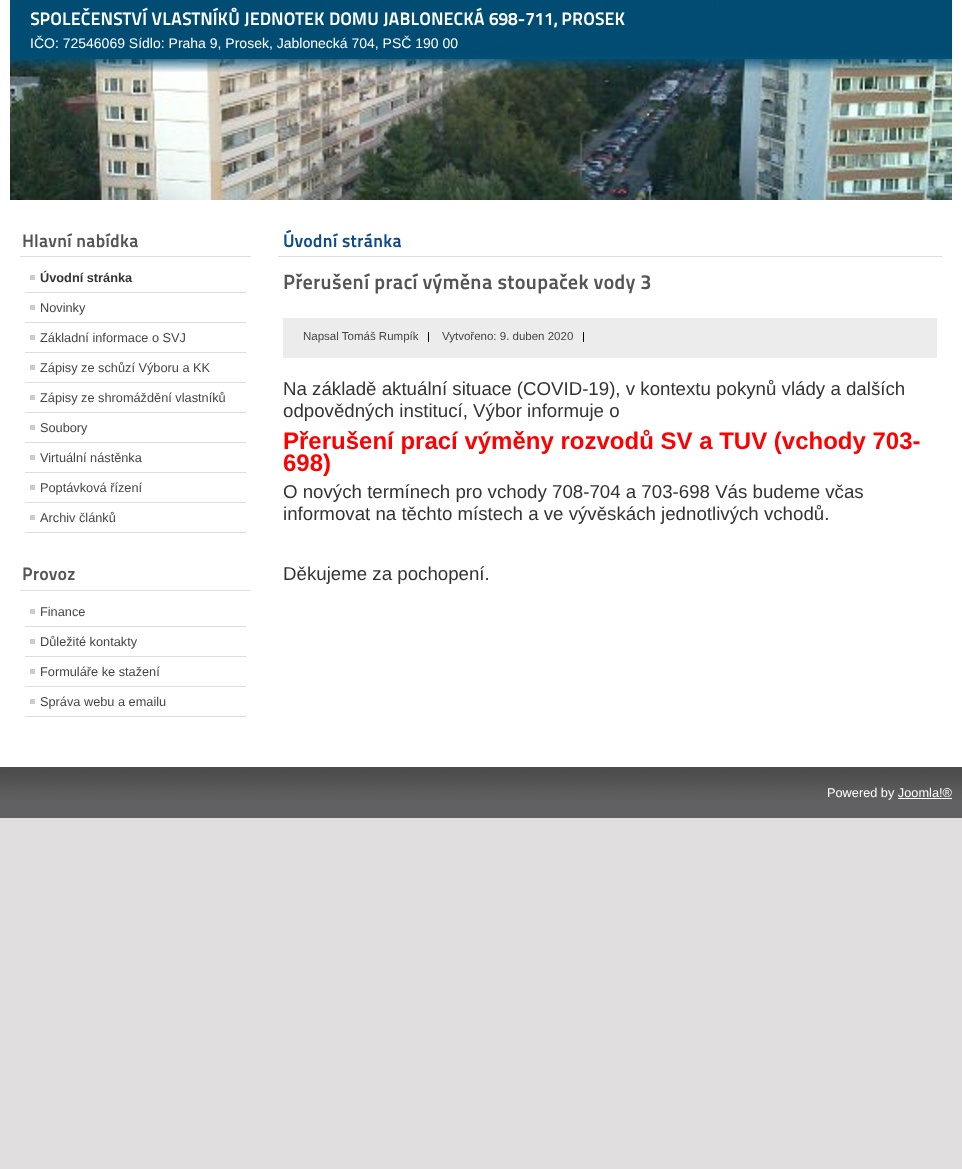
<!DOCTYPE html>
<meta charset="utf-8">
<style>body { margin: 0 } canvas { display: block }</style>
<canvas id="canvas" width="962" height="1169"></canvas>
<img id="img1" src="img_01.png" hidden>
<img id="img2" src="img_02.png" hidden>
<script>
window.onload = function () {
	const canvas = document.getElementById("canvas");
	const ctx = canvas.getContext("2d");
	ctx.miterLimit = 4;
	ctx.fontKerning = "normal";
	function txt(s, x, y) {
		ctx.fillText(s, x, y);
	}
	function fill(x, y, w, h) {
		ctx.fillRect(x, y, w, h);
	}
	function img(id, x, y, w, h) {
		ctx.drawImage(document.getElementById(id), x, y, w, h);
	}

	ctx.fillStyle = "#E0DEDF";
	fill(0, 0, 962, 1169);
	ctx.fillStyle = "#FFFFFF";
	fill(0, 0, 962, 767);
	img("img1", 10, 0, 942, 200);
	ctx.fillStyle = "#DDDDDD";
	fill(20, 256, 231, 1);
	fill(25, 292, 221, 1);
	ctx.fillStyle = "#CCCCCC";
	fill(30, 275, 5, 5);
	ctx.fillStyle = "#DDDDDD";
	fill(25, 322, 221, 1);
	ctx.fillStyle = "#CCCCCC";
	fill(30, 305, 5, 5);
	ctx.fillStyle = "#DDDDDD";
	fill(25, 352, 221, 1);
	ctx.fillStyle = "#CCCCCC";
	fill(30, 335, 5, 5);
	ctx.fillStyle = "#DDDDDD";
	fill(25, 382, 221, 1);
	ctx.fillStyle = "#CCCCCC";
	fill(30, 365, 5, 5);
	ctx.fillStyle = "#DDDDDD";
	fill(25, 412, 221, 1);
	ctx.fillStyle = "#CCCCCC";
	fill(30, 395, 5, 5);
	ctx.fillStyle = "#DDDDDD";
	fill(25, 442, 221, 1);
	ctx.fillStyle = "#CCCCCC";
	fill(30, 425, 5, 5);
	ctx.fillStyle = "#DDDDDD";
	fill(25, 472, 221, 1);
	ctx.fillStyle = "#CCCCCC";
	fill(30, 455, 5, 5);
	ctx.fillStyle = "#DDDDDD";
	fill(25, 502, 221, 1);
	ctx.fillStyle = "#CCCCCC";
	fill(30, 485, 5, 5);
	ctx.fillStyle = "#DDDDDD";
	fill(25, 532, 221, 1);
	ctx.fillStyle = "#CCCCCC";
	fill(30, 515, 5, 5);
	ctx.fillStyle = "#DDDDDD";
	fill(20, 590, 231, 1);
	fill(25, 626, 221, 1);
	ctx.fillStyle = "#CCCCCC";
	fill(30, 609, 5, 5);
	ctx.fillStyle = "#DDDDDD";
	fill(25, 656, 221, 1);
	ctx.fillStyle = "#CCCCCC";
	fill(30, 639, 5, 5);
	ctx.fillStyle = "#DDDDDD";
	fill(25, 686, 221, 1);
	ctx.fillStyle = "#CCCCCC";
	fill(30, 669, 5, 5);
	ctx.fillStyle = "#DDDDDD";
	fill(25, 716, 221, 1);
	ctx.fillStyle = "#CCCCCC";
	fill(30, 699, 5, 5);
	ctx.fillStyle = "#DDDDDD";
	fill(278, 256, 664, 1);
	ctx.fillStyle = "#ECECEC";
	fill(283, 318, 654, 40);
	ctx.fillStyle = "#000000";
	fill(428, 332, 1, 10);
	fill(583, 332, 1, 10);
	img("img2", 0, 767, 962, 51);
	ctx.fillStyle = "#FFFFFF";
	fill(898, 798, 54, 1);
	ctx.font = "800 18px 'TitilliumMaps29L'";
	txt("SPOLEČENSTVÍ VLASTNÍKŮ JEDNOTEK DOMU JABLONECKÁ 698-711, PROSEK", 30, 25);
	ctx.font = "14px Liberation Sans";
	txt("IČO: 72546069 Sídlo: Praha 9, Prosek, Jablonecká 704, PSČ 190 00", 30, 48);
	ctx.font = "800 18px 'TitilliumMaps29L'";
	ctx.fillStyle = "#555555";
	txt("Hlavní nabídka", 22, 247);
	ctx.font = "bold 12.75px Liberation Sans";
	ctx.fillStyle = "#333333";
	txt("Úvodní stránka", 40, 282);
	ctx.font = "12.75px Liberation Sans";
	ctx.fillStyle = "#444444";
	txt("Novinky", 40, 312);
	txt("Základní informace o SVJ", 40, 342);
	txt("Zápisy ze schůzí Výboru a KK", 40, 372);
	txt("Zápisy ze shromáždění vlastníků", 40, 402);
	txt("Soubory", 40, 432);
	txt("Virtuální nástěnka", 40, 462);
	txt("Poptávková řízení", 40, 492);
	txt("Archiv článků", 40, 522);
	ctx.font = "800 18px 'TitilliumMaps29L'";
	ctx.fillStyle = "#555555";
	txt("Provoz", 22, 580);
	ctx.font = "12.75px Liberation Sans";
	ctx.fillStyle = "#444444";
	txt("Finance", 40, 616);
	txt("Důležité kontakty", 40, 646);
	txt("Formuláře ke stažení", 40, 676);
	txt("Správa webu a emailu", 40, 706);
	ctx.font = "800 18px 'TitilliumMaps29L'";
	ctx.fillStyle = "#0D4C89";
	txt("Úvodní stránka", 283, 247);
	ctx.font = "800 20.5px 'TitilliumMaps29L'";
	ctx.fillStyle = "#555555";
	txt("Přerušení prací výměna stoupaček vody 3", 283, 289);
	ctx.font = "11.5px Liberation Sans";
	ctx.fillStyle = "#444444";
	txt("Napsal Tomáš Rumpík", 303, 340);
	txt("Vytvořeno: 9. duben 2020", 442, 340);
	ctx.font = "18.7px Liberation Sans";
	ctx.fillStyle = "#333333";
	txt("Na základě aktuální situace (COVID-19), v kontextu pokynů vlády a dalších", 283, 395);
	txt("odpovědných institucí, Výbor informuje o", 283, 417);
	ctx.font = "bold 24px Liberation Sans";
	ctx.fillStyle = "#FF0000";
	txt("Přerušení prací výměny rozvodů SV a TUV (vchody 703-", 283, 449);
	txt("698)", 283, 471);
	ctx.font = "18.7px Liberation Sans";
	ctx.fillStyle = "#333333";
	txt("O nových termínech pro vchody 708-704 a 703-698 Vás budeme včas", 283, 498);
	txt("informovat na těchto místech a ve vývěskách jednotlivých vchodů.", 283, 520);
	txt("Děkujeme za pochopení.", 283, 580);
	ctx.font = "12.75px Liberation Sans";
	ctx.fillStyle = "#FFFFFF";
	txt("Powered by Joomla!®", 827, 797);
};
</script>
